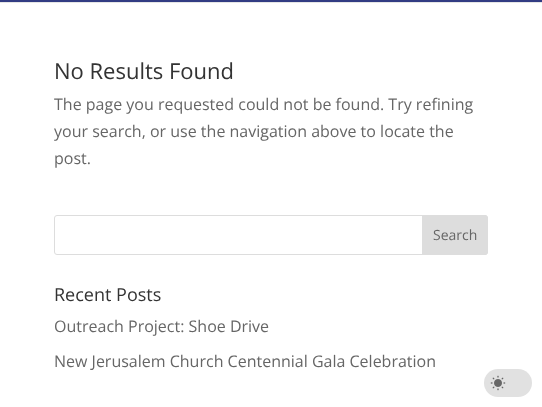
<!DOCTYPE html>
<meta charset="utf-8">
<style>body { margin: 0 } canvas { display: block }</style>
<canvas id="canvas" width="542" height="407"></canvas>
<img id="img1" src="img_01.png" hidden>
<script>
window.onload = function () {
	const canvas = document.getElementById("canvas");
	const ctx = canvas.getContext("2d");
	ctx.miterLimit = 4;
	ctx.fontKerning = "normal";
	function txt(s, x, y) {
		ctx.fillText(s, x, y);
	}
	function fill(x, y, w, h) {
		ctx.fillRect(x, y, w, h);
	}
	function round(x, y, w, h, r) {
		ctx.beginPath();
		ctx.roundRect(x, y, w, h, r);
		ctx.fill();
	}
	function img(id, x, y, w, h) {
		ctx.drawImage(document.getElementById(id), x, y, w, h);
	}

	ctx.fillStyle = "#FFFFFF";
	fill(0, 0, 542, 407);
	ctx.fillStyle = "#E6E6E6";
	fill(0, 2, 542, 1);
	ctx.fillStyle = "#323C83";
	fill(0, 0, 542, 2);
	ctx.beginPath();
	ctx.roundRect(54.5, 215.5, 433, 39, 2.5);
	ctx.strokeStyle = "#DDDDDD";
	ctx.stroke();
	ctx.fillStyle = "#DDDDDD";
	ctx.beginPath();
	ctx.roundRect(422.5, 215.5, 65, 39, [0, 2.5, 2.5, 0]);
	ctx.fill();
	ctx.stroke();
	ctx.fillStyle = "#E1E1E1";
	round(484, 369, 48, 28, 14);
	img("img1", 490, 375, 16, 16);
	ctx.font = "22px Open Sans";
	ctx.fillStyle = "#333333";
	txt("No Results Found", 54, 79);
	ctx.font = "16px Open Sans";
	ctx.fillStyle = "#666666";
	txt("The page you requested could not be found. Try refining", 54, 110);
	txt("your search, or use the navigation above to locate the", 54, 137);
	txt("post.", 54, 164);
	ctx.font = "14px Open Sans";
	txt("Search", 433, 240);
	ctx.font = "18px Open Sans";
	ctx.fillStyle = "#333333";
	txt("Recent Posts", 54, 301);
	ctx.font = "16px Open Sans";
	ctx.fillStyle = "#666666";
	txt("Outreach Project: Shoe Drive", 54, 332);
	txt("New Jerusalem Church Centennial Gala Celebration", 54, 367);
};
</script>
